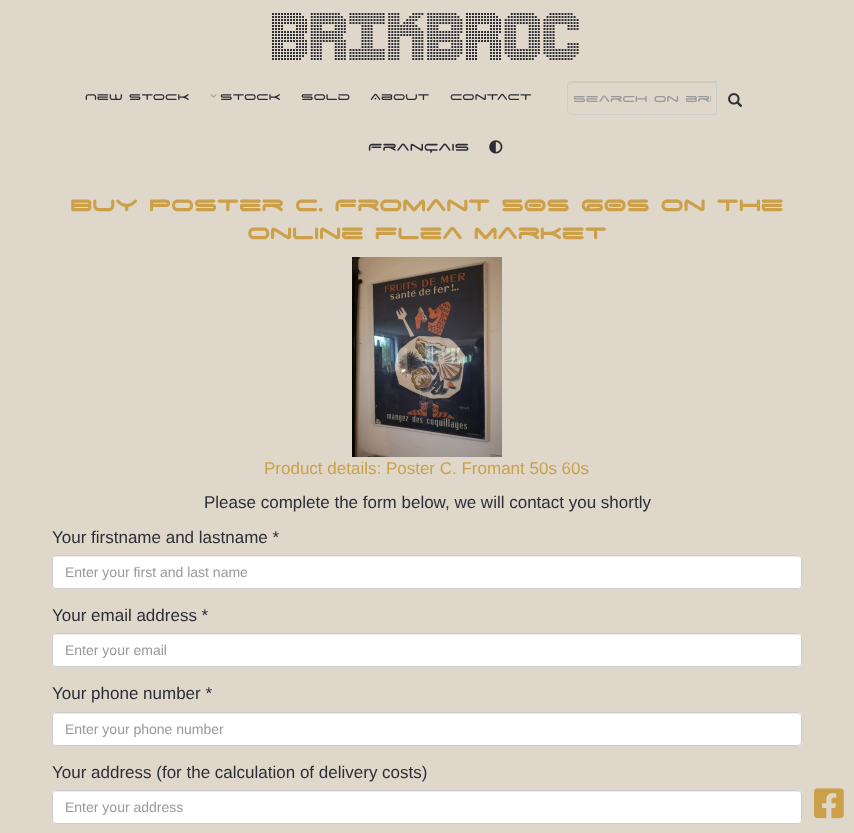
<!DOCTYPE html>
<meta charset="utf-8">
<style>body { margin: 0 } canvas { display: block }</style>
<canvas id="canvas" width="854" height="833"></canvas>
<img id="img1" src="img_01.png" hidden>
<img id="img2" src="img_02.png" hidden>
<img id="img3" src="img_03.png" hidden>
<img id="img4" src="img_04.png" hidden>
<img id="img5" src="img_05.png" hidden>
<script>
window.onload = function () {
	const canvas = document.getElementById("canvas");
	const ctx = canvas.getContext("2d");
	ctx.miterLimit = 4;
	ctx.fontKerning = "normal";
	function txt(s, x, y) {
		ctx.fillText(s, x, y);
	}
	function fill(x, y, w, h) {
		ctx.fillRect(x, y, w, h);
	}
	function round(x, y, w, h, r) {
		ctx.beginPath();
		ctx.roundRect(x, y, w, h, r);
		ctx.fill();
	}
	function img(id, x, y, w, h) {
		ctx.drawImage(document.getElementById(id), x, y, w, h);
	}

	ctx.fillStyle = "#DFD8CA";
	fill(0, 0, 854, 833);
	img("img1", 210, 94, 7, 4);
	ctx.fillStyle = "#CEC8BB";
	ctx.beginPath();
	ctx.moveTo(571, 83);
	ctx.lineTo(716, 83);
	ctx.lineTo(716, 82);
	ctx.lineTo(571, 82);
	ctx.bezierCurveTo(569, 82, 568, 84, 568, 86);
	ctx.bezierCurveTo(568, 84, 569, 83, 571, 83);
	ctx.closePath();
	ctx.fill();
	ctx.beginPath();
	ctx.roundRect(567.5, 81.5, 149, 33, [3.5, 0, 0, 3.5]);
	ctx.strokeStyle = "#CCCCCC";
	ctx.stroke();
	img("img2", 728, 93, 15, 14);
	img("img3", 489, 140, 14, 14);
	img("img4", 352, 257, 150, 200);
	ctx.fillStyle = "#FFFFFF";
	round(52, 555, 750, 34, 4);
	ctx.fillStyle = "#ECECEC";
	ctx.beginPath();
	ctx.moveTo(56, 557);
	ctx.lineTo(798, 557);
	ctx.bezierCurveTo(800, 557, 801, 558, 801, 560);
	ctx.bezierCurveTo(801, 558, 800, 556, 798, 556);
	ctx.lineTo(56, 556);
	ctx.bezierCurveTo(54, 556, 53, 558, 53, 560);
	ctx.bezierCurveTo(53, 558, 54, 557, 56, 557);
	ctx.closePath();
	ctx.fill();
	ctx.beginPath();
	ctx.roundRect(52.5, 555.5, 749, 33, 3.5);
	ctx.stroke();
	ctx.fillStyle = "#FFFFFF";
	round(52, 633, 750, 34, 4);
	ctx.fillStyle = "#ECECEC";
	ctx.beginPath();
	ctx.moveTo(56, 635);
	ctx.lineTo(798, 635);
	ctx.bezierCurveTo(800, 635, 801, 636, 801, 638);
	ctx.bezierCurveTo(801, 636, 800, 634, 798, 634);
	ctx.lineTo(56, 634);
	ctx.bezierCurveTo(54, 634, 53, 636, 53, 638);
	ctx.bezierCurveTo(53, 636, 54, 635, 56, 635);
	ctx.closePath();
	ctx.fill();
	ctx.beginPath();
	ctx.roundRect(52.5, 633.5, 749, 33, 3.5);
	ctx.stroke();
	ctx.fillStyle = "#FFFFFF";
	round(52, 712, 750, 34, 4);
	ctx.fillStyle = "#ECECEC";
	ctx.beginPath();
	ctx.moveTo(56, 714);
	ctx.lineTo(798, 714);
	ctx.bezierCurveTo(800, 714, 801, 715, 801, 717);
	ctx.bezierCurveTo(801, 715, 800, 713, 798, 713);
	ctx.lineTo(56, 713);
	ctx.bezierCurveTo(54, 713, 53, 715, 53, 717);
	ctx.bezierCurveTo(53, 715, 54, 714, 56, 714);
	ctx.closePath();
	ctx.fill();
	ctx.beginPath();
	ctx.roundRect(52.5, 712.5, 749, 33, 3.5);
	ctx.stroke();
	ctx.fillStyle = "#FFFFFF";
	round(52, 790, 750, 34, 4);
	ctx.fillStyle = "#ECECEC";
	ctx.beginPath();
	ctx.moveTo(56, 792);
	ctx.lineTo(798, 792);
	ctx.bezierCurveTo(800, 792, 801, 793, 801, 795);
	ctx.bezierCurveTo(801, 793, 800, 791, 798, 791);
	ctx.lineTo(56, 791);
	ctx.bezierCurveTo(54, 791, 53, 793, 53, 795);
	ctx.bezierCurveTo(53, 793, 54, 792, 56, 792);
	ctx.closePath();
	ctx.fill();
	ctx.beginPath();
	ctx.roundRect(52.5, 790.5, 749, 33, 3.5);
	ctx.stroke();
	img("img5", 814, 788, 30, 31);
	ctx.font = "51.25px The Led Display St";
	ctx.fillStyle = "#2D2E35";
	txt("Brikbroc", 272, 60);
	ctx.font = "13.5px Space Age";
	txt("New stock", 85, 101);
	txt("Stock", 220, 101);
	txt("Sold", 301, 101);
	txt("About", 370, 101);
	txt("Contact", 450, 101);
	ctx.save();
	ctx.beginPath();
	ctx.rect(573, 92, 138, 13);
	ctx.clip();
	ctx.font = "14px Space Age";
	ctx.fillStyle = "#999999";
	txt("Search on bri", 573, 103);
	ctx.restore();
	ctx.font = "16px Space Age";
	txt("Français", 368, 152);
	ctx.font = "bold 25px Space Age";
	ctx.fillStyle = "#CBA049";
	txt("Buy Poster C. Fromant 50s 60s on the", 70, 213);
	txt("online flea market", 247, 241);
	ctx.font = "17px Liberation Sans";
	txt("Product details: Poster C. Fromant 50s 60s", 264, 474);
	ctx.fillStyle = "#2D2E35";
	txt("Please complete the form below, we will contact you shortly", 204, 508);
	txt("Your firstname and lastname *", 52, 543);
	ctx.font = "14px Liberation Sans";
	ctx.fillStyle = "#999999";
	txt("Enter your first and last name", 65, 577);
	ctx.font = "17px Liberation Sans";
	ctx.fillStyle = "#2D2E35";
	txt("Your email address *", 52, 621);
	ctx.font = "14px Liberation Sans";
	ctx.fillStyle = "#999999";
	txt("Enter your email", 65, 655);
	ctx.font = "17px Liberation Sans";
	ctx.fillStyle = "#2D2E35";
	txt("Your phone number *", 52, 699);
	ctx.font = "14px Liberation Sans";
	ctx.fillStyle = "#999999";
	txt("Enter your phone number", 65, 734);
	ctx.font = "17px Liberation Sans";
	ctx.fillStyle = "#2D2E35";
	txt("Your address (for the calculation of delivery costs)", 52, 778);
	ctx.font = "14px Liberation Sans";
	ctx.fillStyle = "#999999";
	txt("Enter your address", 65, 812);
};
</script>
